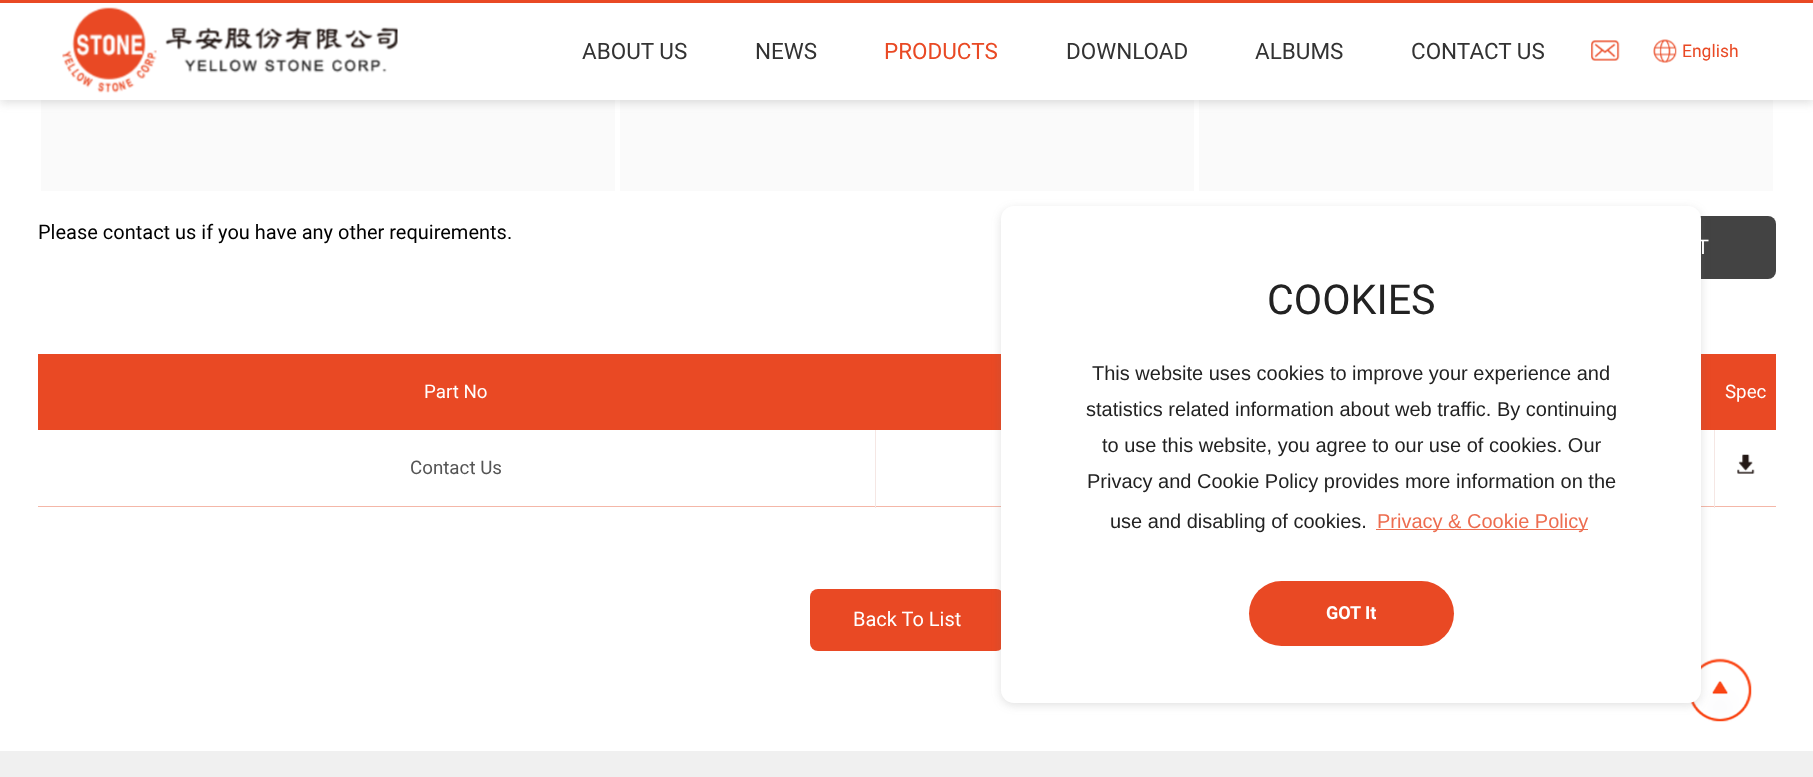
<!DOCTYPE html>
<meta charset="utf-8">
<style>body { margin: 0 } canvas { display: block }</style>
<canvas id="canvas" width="1813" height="777"></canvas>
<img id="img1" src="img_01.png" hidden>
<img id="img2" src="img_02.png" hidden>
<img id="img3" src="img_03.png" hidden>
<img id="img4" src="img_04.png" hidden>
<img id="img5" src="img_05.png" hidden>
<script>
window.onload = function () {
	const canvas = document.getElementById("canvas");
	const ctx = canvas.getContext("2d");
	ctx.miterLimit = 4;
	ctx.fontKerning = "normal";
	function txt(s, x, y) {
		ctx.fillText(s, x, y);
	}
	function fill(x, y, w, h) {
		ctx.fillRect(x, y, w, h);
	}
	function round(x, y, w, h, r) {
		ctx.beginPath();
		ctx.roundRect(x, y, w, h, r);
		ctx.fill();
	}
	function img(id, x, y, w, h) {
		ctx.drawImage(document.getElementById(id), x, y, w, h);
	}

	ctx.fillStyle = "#FFFFFF";
	fill(0, 0, 1813, 777);
	ctx.fillStyle = "#FAFAFA";
	fill(41, 100, 574, 91);
	fill(620, 100, 574, 91);
	fill(1199, 100, 574, 91);
	ctx.fillStyle = "rgba(99, 99, 99, 0.2)";
	ctx.filter = "blur(5px)";
	ctx.beginPath();
	ctx.rect(0, 3, 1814, 100);
	ctx.fill();
	ctx.filter = "none";
	ctx.fillStyle = "#FFFFFF";
	fill(0, 3, 1813, 97);
	ctx.fillStyle = "#E94924";
	fill(0, 0, 1813, 3);
	img("img1", 62, 7, 336, 86);
	img("img2", 1591, 40, 29, 21);
	img("img3", 1653, 39, 24, 24);
	ctx.fillStyle = "#434343";
	round(1583, 216, 193, 63, 8);
	ctx.fillStyle = "#E94924";
	fill(38, 354, 1738, 76);
	ctx.fillStyle = "#F4B7A8";
	fill(38, 506, 1738, 1);
	ctx.fillStyle = "#F5E7E4";
	fill(875, 430, 1, 78);
	fill(1714, 430, 1, 78);
	img("img4", 1737, 454, 18, 20);
	ctx.fillStyle = "#E94924";
	round(810, 589, 194, 62, 8);
	img("img5", 1690, 658, 62, 64);
	ctx.fillStyle = "#F0F0F0";
	fill(0, 751, 1813, 26);
	ctx.fillStyle = "rgba(99, 99, 99, 0.2)";
	ctx.filter = "blur(5px)";
	ctx.beginPath();
	ctx.roundRect(1001, 209, 700, 496, 13);
	ctx.fill();
	ctx.filter = "none";
	ctx.fillStyle = "#FFFFFF";
	round(1001, 206, 700, 497, 13);
	ctx.fillStyle = "#ED6D50";
	fill(1376, 529, 212, 1);
	ctx.fillStyle = "#E94924";
	round(1249, 581, 205, 65, 32.5);
	ctx.font = "22.5px Roboto";
	ctx.fillStyle = "#333333";
	txt("ABOUT US", 582, 59);
	txt("NEWS", 755, 59);
	ctx.fillStyle = "#E94924";
	txt("PRODUCTS", 884, 59);
	ctx.fillStyle = "#333333";
	txt("DOWNLOAD", 1066, 59);
	txt("ALBUMS", 1255, 59);
	txt("CONTACT US", 1411, 59);
	ctx.font = "17.5px Roboto";
	ctx.fillStyle = "#E94924";
	txt("English", 1682, 57);
	ctx.font = "20px Roboto";
	ctx.fillStyle = "#000000";
	txt("Please contact us if you have any other requirements.", 38, 239);
	ctx.fillStyle = "#FFFFFF";
	txt("T", 1697, 254);
	ctx.font = "18.75px Roboto";
	txt("Part No", 424, 398);
	txt("Spec", 1725, 398);
	ctx.fillStyle = "#555555";
	txt("Contact Us", 410, 474);
	ctx.font = "20px Roboto";
	ctx.fillStyle = "#FFFFFF";
	txt("Back To List", 853, 626);
	ctx.font = "41.25px Roboto";
	ctx.fillStyle = "#222222";
	txt("COOKIES", 1267, 314);
	ctx.font = "20px Liberation Sans";
	txt("This website uses cookies to improve your experience and", 1092, 380);
	txt("statistics related information about web traffic. By continuing", 1086, 416);
	txt("to use this website, you agree to our use of cookies. Our", 1102, 452);
	txt("Privacy and Cookie Policy provides more information on the", 1087, 488);
	txt("use and disabling of cookies.", 1110, 528);
	ctx.fillStyle = "#ED6D50";
	txt("Privacy & Cookie Policy", 1377, 528);
	ctx.font = "bold 18px Roboto";
	ctx.fillStyle = "#FFFFFF";
	txt("GOT It", 1326, 619);
};
</script>
